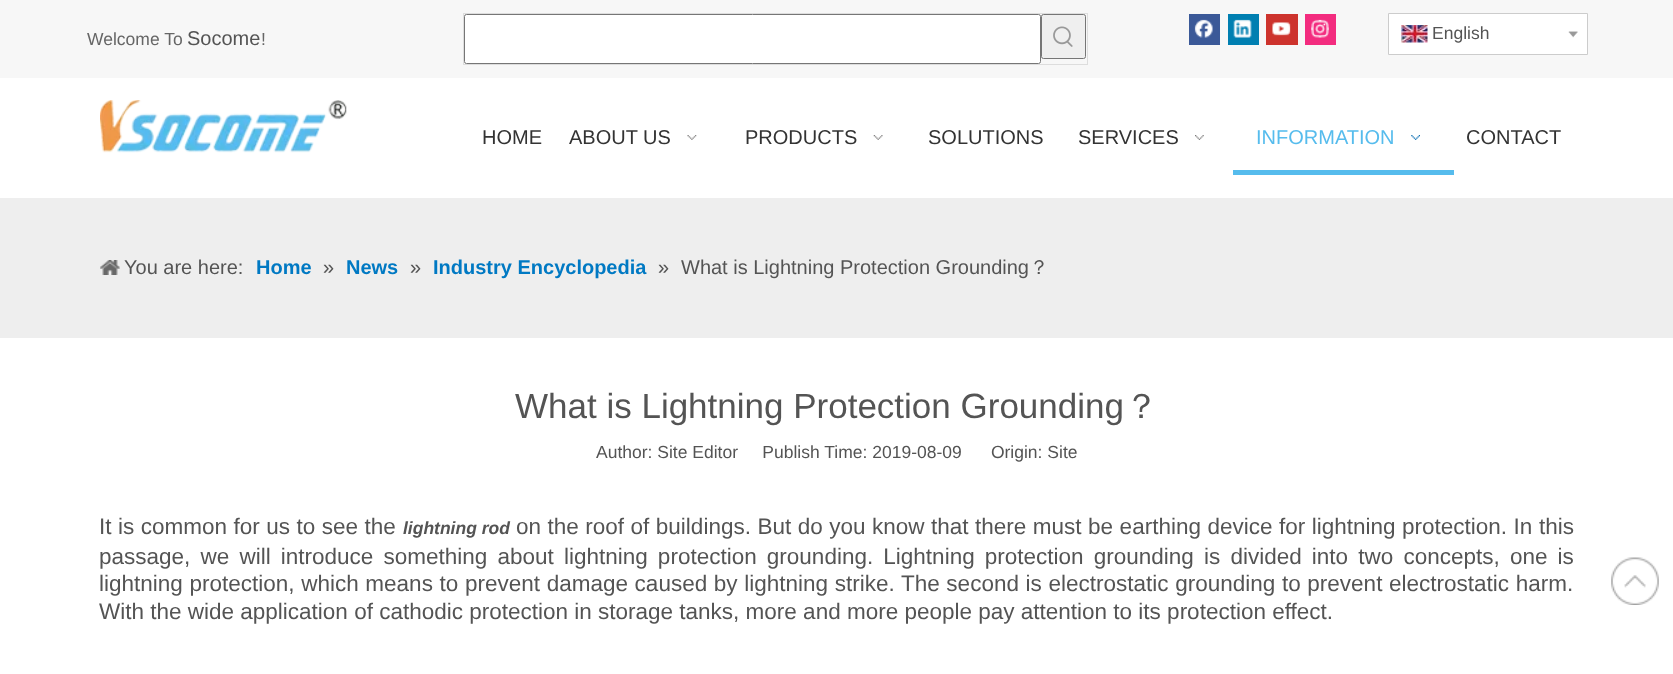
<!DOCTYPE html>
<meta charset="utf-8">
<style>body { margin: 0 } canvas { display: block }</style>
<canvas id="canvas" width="1673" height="674"></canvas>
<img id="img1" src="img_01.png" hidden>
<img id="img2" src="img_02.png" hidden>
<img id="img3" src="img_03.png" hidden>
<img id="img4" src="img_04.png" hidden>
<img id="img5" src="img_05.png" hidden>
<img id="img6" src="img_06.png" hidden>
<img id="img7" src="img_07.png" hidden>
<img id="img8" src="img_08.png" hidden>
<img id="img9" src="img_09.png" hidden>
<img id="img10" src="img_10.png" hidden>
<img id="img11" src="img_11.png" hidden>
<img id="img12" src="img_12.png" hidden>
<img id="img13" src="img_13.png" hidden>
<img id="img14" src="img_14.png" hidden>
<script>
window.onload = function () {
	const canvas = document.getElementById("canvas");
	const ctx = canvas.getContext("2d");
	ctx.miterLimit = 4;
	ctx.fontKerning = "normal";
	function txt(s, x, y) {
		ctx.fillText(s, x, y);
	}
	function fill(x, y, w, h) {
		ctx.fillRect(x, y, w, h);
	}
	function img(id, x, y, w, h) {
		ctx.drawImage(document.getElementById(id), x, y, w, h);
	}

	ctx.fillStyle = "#FFFFFF";
	fill(0, 0, 1673, 674);
	ctx.fillStyle = "#F7F7F7";
	fill(0, 0, 1673, 78);
	ctx.strokeStyle = "#DDDDDD";
	ctx.strokeRect(463.5, 13.5, 624, 51);
	ctx.fillStyle = "#FFFFFF";
	ctx.beginPath();
	ctx.roundRect(464.5, 14.5, 576, 49, 2);
	ctx.fill();
	ctx.strokeStyle = "#767676";
	ctx.stroke();
	ctx.fillStyle = "#EFEFEF";
	ctx.beginPath();
	ctx.roundRect(1041.5, 14.5, 44, 44, 2);
	ctx.fill();
	ctx.stroke();
	img("img1", 1053, 26, 20, 21);
	ctx.fillStyle = "#3B5998";
	fill(1189, 14, 31, 31);
	img("img2", 1194, 19, 19, 19);
	ctx.fillStyle = "#007FB1";
	fill(1228, 14, 31, 31);
	img("img3", 1233, 19, 19, 19);
	ctx.fillStyle = "#CD332D";
	fill(1266, 14, 32, 31);
	img("img4", 1272, 22, 19, 14);
	ctx.fillStyle = "#F32C7F";
	fill(1305, 14, 31, 31);
	img("img5", 1311, 19, 18, 19);
	ctx.fillStyle = "#FFFFFF";
	ctx.beginPath();
	ctx.rect(1388.5, 13.5, 199, 41);
	ctx.fill();
	ctx.strokeStyle = "#CCCCCC";
	ctx.stroke();
	img("img6", 1401, 25, 27, 18);
	img("img7", 1568, 31, 10, 7);
	img("img8", 100, 100, 247, 53);
	img("img9", 687, 135, 10, 5);
	img("img10", 873, 135, 10, 5);
	img("img11", 1195, 135, 9, 5);
	ctx.fillStyle = "#56BCED";
	fill(1233, 170, 221, 5);
	img("img12", 1411, 135, 9, 5);
	ctx.fillStyle = "#EEEEEE";
	fill(0, 198, 1673, 140);
	img("img13", 100, 260, 20, 15);
	img("img14", 1611, 557, 48, 48);
	ctx.font = "17.5px Liberation Sans";
	ctx.fillStyle = "#666666";
	txt("Welcome To", 87, 45);
	ctx.font = "20px Liberation Sans";
	ctx.fillStyle = "#545454";
	txt("Socome", 187, 45);
	ctx.font = "17.5px Liberation Sans";
	ctx.fillStyle = "#666666";
	txt("!", 261, 45);
	ctx.fillStyle = "#545454";
	txt("English", 1432, 39);
	ctx.font = "20px Liberation Sans";
	ctx.fillStyle = "#333333";
	txt("HOME", 482, 144);
	txt("ABOUT US", 569, 144);
	txt("PRODUCTS", 745, 144);
	txt("SOLUTIONS", 928, 144);
	txt("SERVICES", 1078, 144);
	ctx.fillStyle = "#56BCED";
	txt("INFORMATION", 1256, 144);
	ctx.fillStyle = "#333333";
	txt("CONTACT", 1466, 144);
	ctx.fillStyle = "#545454";
	txt("You are here:", 124, 274);
	ctx.font = "bold 20px Liberation Sans";
	ctx.fillStyle = "#0079C3";
	txt("Home", 256, 274);
	ctx.font = "20px Liberation Sans";
	ctx.fillStyle = "#545454";
	txt("»", 323, 274);
	ctx.font = "bold 20px Liberation Sans";
	ctx.fillStyle = "#0079C3";
	txt("News", 346, 274);
	ctx.font = "20px Liberation Sans";
	ctx.fillStyle = "#545454";
	txt("»", 410, 274);
	ctx.font = "bold 20px Liberation Sans";
	ctx.fillStyle = "#0079C3";
	txt("Industry Encyclopedia", 433, 274);
	ctx.font = "20px Liberation Sans";
	ctx.fillStyle = "#545454";
	txt("»", 658, 274);
	txt("What is Lightning Protection Grounding", 681, 274);
	ctx.font = "500 20px WenQuanYi Zen Hei";
	txt("？", 1029, 274);
	ctx.font = "35px Liberation Sans";
	txt("What is Lightning Protection Grounding", 515, 418);
	ctx.font = "500 35px WenQuanYi Zen Hei";
	txt("？", 1124, 418);
	ctx.font = "17.5px Liberation Sans";
	txt("Author: Site Editor     Publish Time: 2019-08-09      Origin: Site", 596, 458);
	ctx.wordSpacing = "0.25px";
	ctx.font = "22.5px Liberation Sans";
	txt("It is common for us to see the", 99, 534);
	ctx.wordSpacing = "0px";
	ctx.font = "italic bold 17.5px Liberation Sans";
	txt("lightning rod", 403, 534);
	ctx.wordSpacing = "0.25px";
	ctx.font = "22.5px Liberation Sans";
	txt("on the roof of buildings. But do you know that there must be earthing device for lightning protection. In this", 516, 534);
	ctx.wordSpacing = "3.9px";
	txt("passage, we will introduce something about lightning protection grounding. Lightning protection grounding is divided into two concepts, one is", 99, 564);
	ctx.wordSpacing = "0.4px";
	txt("lightning protection, which means to prevent damage caused by lightning strike. The second is electrostatic grounding to prevent electrostatic harm.", 99, 591);
	ctx.wordSpacing = "0px";
	txt("With the wide application of cathodic protection in storage tanks, more and more people pay attention to its protection effect.", 99, 619);
};
</script>
